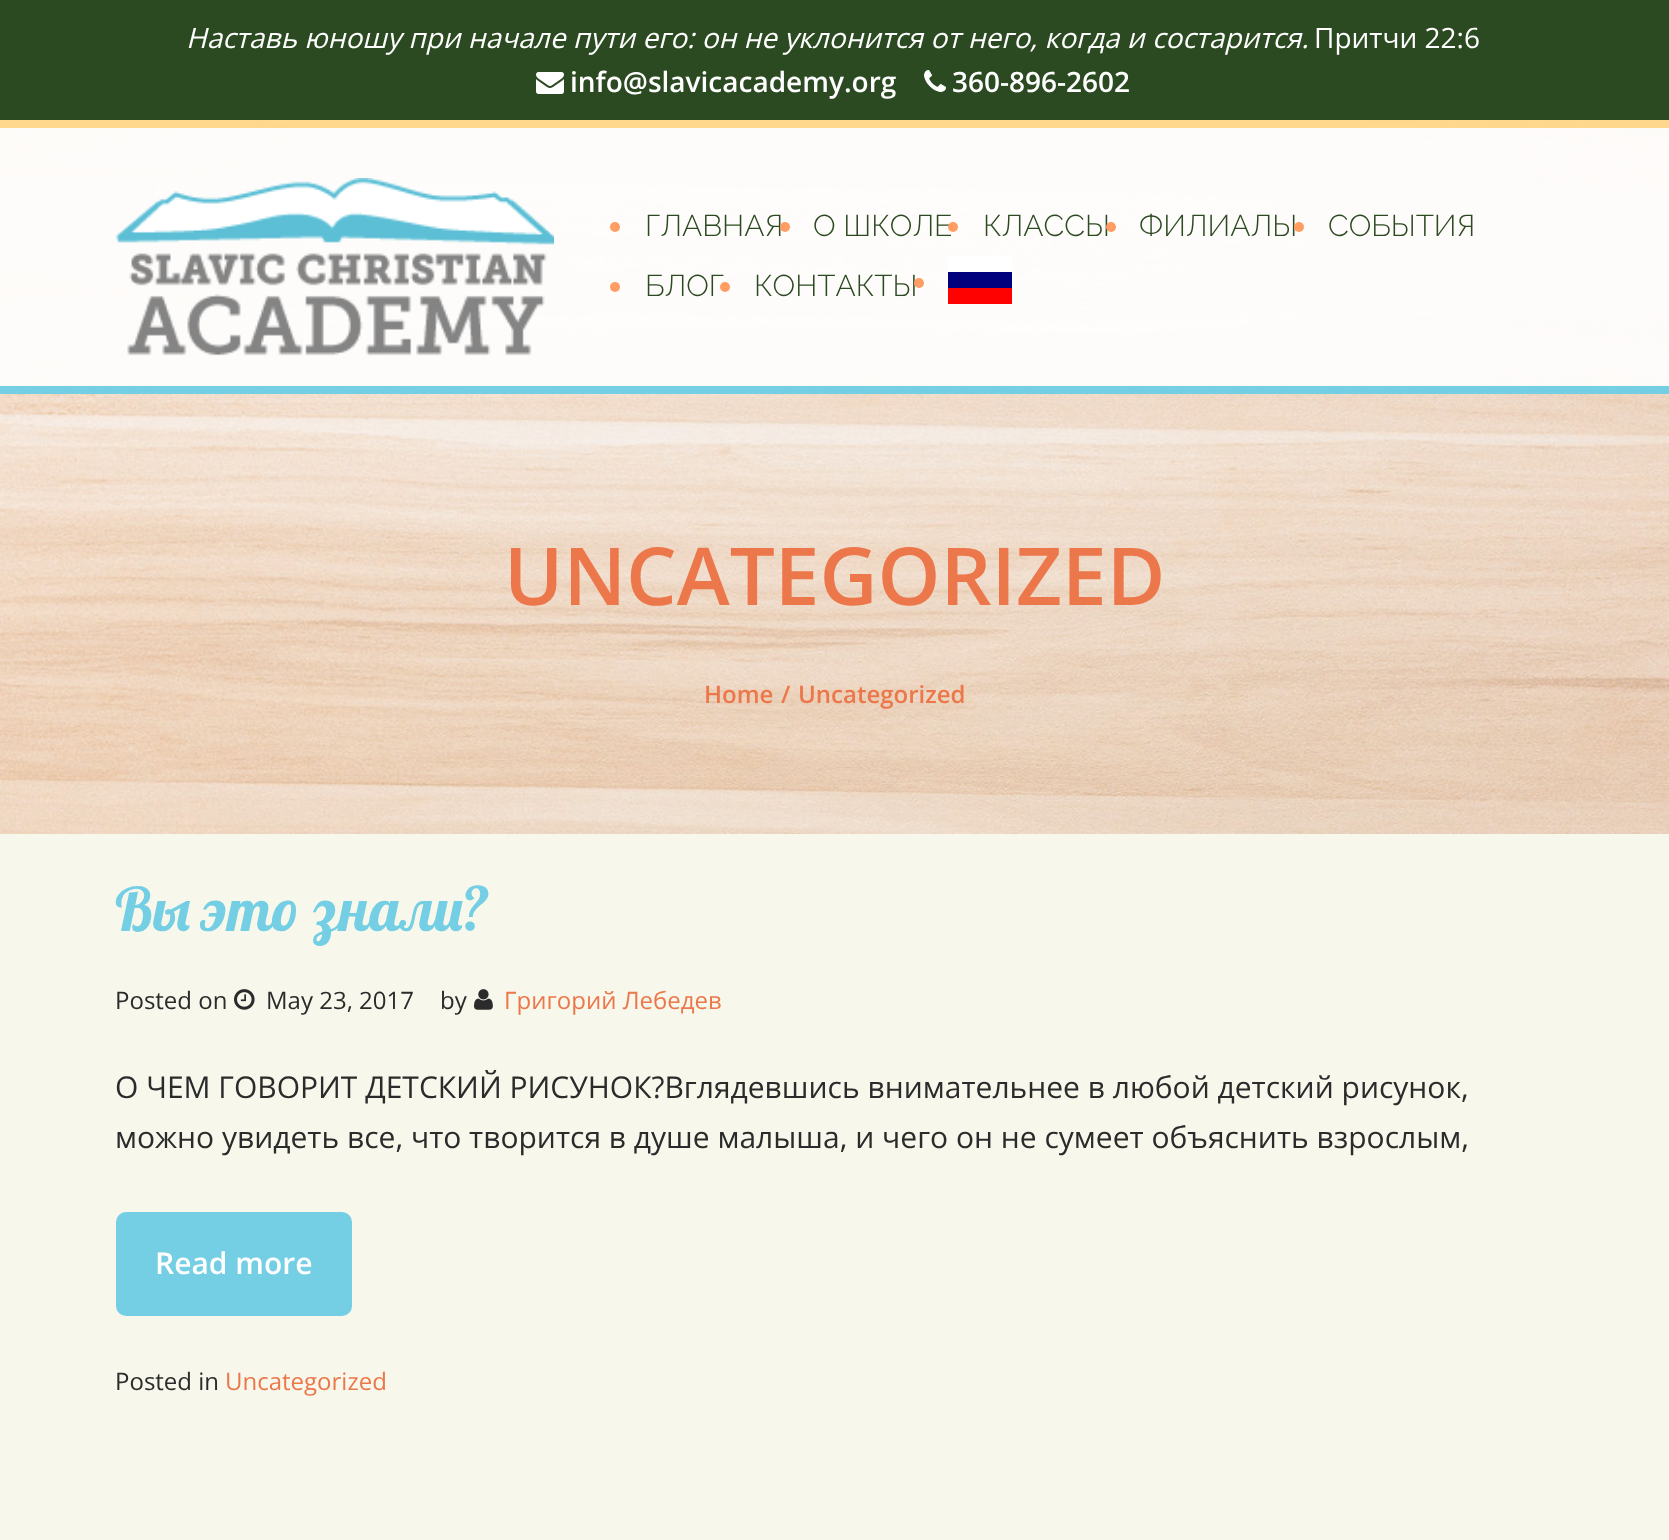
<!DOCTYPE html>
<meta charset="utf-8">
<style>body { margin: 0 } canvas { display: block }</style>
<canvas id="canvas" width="1669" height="1540"></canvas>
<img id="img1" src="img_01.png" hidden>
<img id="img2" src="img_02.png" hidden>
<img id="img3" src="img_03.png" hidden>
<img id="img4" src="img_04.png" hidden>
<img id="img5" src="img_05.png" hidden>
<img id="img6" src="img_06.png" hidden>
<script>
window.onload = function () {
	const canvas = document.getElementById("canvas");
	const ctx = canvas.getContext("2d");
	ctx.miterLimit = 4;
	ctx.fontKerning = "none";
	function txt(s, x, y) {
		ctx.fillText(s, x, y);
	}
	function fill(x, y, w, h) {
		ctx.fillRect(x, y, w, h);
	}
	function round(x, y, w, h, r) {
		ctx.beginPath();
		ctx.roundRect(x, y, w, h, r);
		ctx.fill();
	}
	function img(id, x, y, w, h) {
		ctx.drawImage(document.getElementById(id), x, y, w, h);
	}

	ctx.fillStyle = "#F7F8EB";
	fill(0, 0, 1669, 1540);
	img("img1", 0, 120, 1669, 714);
	ctx.fillStyle = "#2C4A21";
	fill(0, 0, 1669, 120);
	img("img2", 536, 72, 28, 22);
	img("img3", 924, 70, 22, 22);
	ctx.fillStyle = "rgba(255, 255, 255, 0.9)";
	fill(0, 120, 1669, 266);
	ctx.fillStyle = "rgba(255, 199, 94, 0.7)";
	fill(0, 120, 1669, 8);
	ctx.fillStyle = "#74CEE4";
	fill(0, 386, 1669, 8);
	img("img4", 116, 178, 438, 178);
	ctx.fillStyle = "#FF9D62";
	ctx.beginPath();
	ctx.arc(615, 227, 5, 0, Math.PI * 2);
	ctx.fill();
	ctx.beginPath();
	ctx.arc(615, 287, 5, 0, Math.PI * 2);
	ctx.fill();
	ctx.fillStyle = "#FFFFFF";
	fill(948, 256, 64, 16);
	ctx.fillStyle = "#01017E";
	fill(948, 272, 64, 16);
	ctx.fillStyle = "#FE0101";
	fill(948, 288, 64, 16);
	img("img5", 234, 989, 21, 21);
	img("img6", 474, 989, 19, 21);
	ctx.fillStyle = "#74CEE4";
	round(116, 1212, 236, 104, 10);
	ctx.font = "italic 28px Open Sans";
	ctx.fillStyle = "#FFFFFF";
	txt("Наставь юношу при начале пути его: он не уклонится от него, когда и состарится.", 186, 48);
	ctx.font = "28px Open Sans";
	txt("Притчи 22:6", 1314, 48);
	ctx.font = "600 28px Open Sans";
	txt("info@slavicacademy.org", 570, 92);
	txt("360-896-2602", 952, 92);
	ctx.font = "300 30px Raleway";
	ctx.fillStyle = "#2C4A21";
	txt("ГЛАВНАЯ", 645, 236);
	ctx.fillStyle = "#FF9D62";
	ctx.beginPath();
	ctx.arc(785, 227, 5, 0, Math.PI * 2);
	ctx.fill();
	ctx.fillStyle = "#2C4A21";
	txt("О ШКОЛЕ", 813, 236);
	ctx.fillStyle = "#FF9D62";
	ctx.beginPath();
	ctx.arc(953, 227, 5, 0, Math.PI * 2);
	ctx.fill();
	ctx.fillStyle = "#2C4A21";
	txt("КЛАССЫ", 983, 236);
	ctx.fillStyle = "#FF9D62";
	ctx.beginPath();
	ctx.arc(1111, 227, 5, 0, Math.PI * 2);
	ctx.fill();
	ctx.fillStyle = "#2C4A21";
	txt("ФИЛИАЛЫ", 1139, 236);
	ctx.fillStyle = "#FF9D62";
	ctx.beginPath();
	ctx.arc(1299, 227, 5, 0, Math.PI * 2);
	ctx.fill();
	ctx.fillStyle = "#2C4A21";
	txt("СОБЫТИЯ", 1328, 236);
	txt("БЛОГ", 645, 296);
	ctx.fillStyle = "#FF9D62";
	ctx.beginPath();
	ctx.arc(725, 287, 5, 0, Math.PI * 2);
	ctx.fill();
	ctx.fillStyle = "#2C4A21";
	txt("КОНТАКТЫ", 754, 296);
	ctx.fillStyle = "#FF9D62";
	ctx.beginPath();
	ctx.arc(919, 283, 5, 0, Math.PI * 2);
	ctx.fill();
	ctx.font = "600 80px Open Sans";
	ctx.fillStyle = "#EC774B";
	txt("UNCATEGORIZED", 504, 605);
	ctx.font = "600 24px Open Sans";
	txt("Home", 704, 703);
	txt("/", 781, 703);
	txt("Uncategorized", 798, 703);
	ctx.font = "60px Lobster";
	ctx.fillStyle = "#74CEE4";
	txt("Вы это знали?", 115, 931);
	ctx.font = "24px Open Sans";
	ctx.fillStyle = "#2B2B2B";
	txt("Posted on", 115, 1009);
	txt("May 23, 2017", 266, 1009);
	txt("by", 440, 1009);
	ctx.fillStyle = "#EC774B";
	txt("Григорий Лебедев", 504, 1009);
	ctx.font = "30px Open Sans";
	ctx.fillStyle = "#2B2B2B";
	txt("О ЧЕМ ГОВОРИТ ДЕТСКИЙ РИСУНОК?Вглядевшись внимательнее в любой детский рисунок,", 115, 1098);
	txt("можно увидеть все, что творится в душе малыша, и чего он не сумеет объяснить взрослым,", 115, 1148);
	ctx.font = "600 30px Open Sans";
	ctx.fillStyle = "#FFFFFF";
	txt("Read more", 155, 1274);
	ctx.font = "24px Open Sans";
	ctx.fillStyle = "#2B2B2B";
	txt("Posted in", 115, 1390);
	ctx.fillStyle = "#EC774B";
	txt("Uncategorized", 225, 1390);
};
</script>
